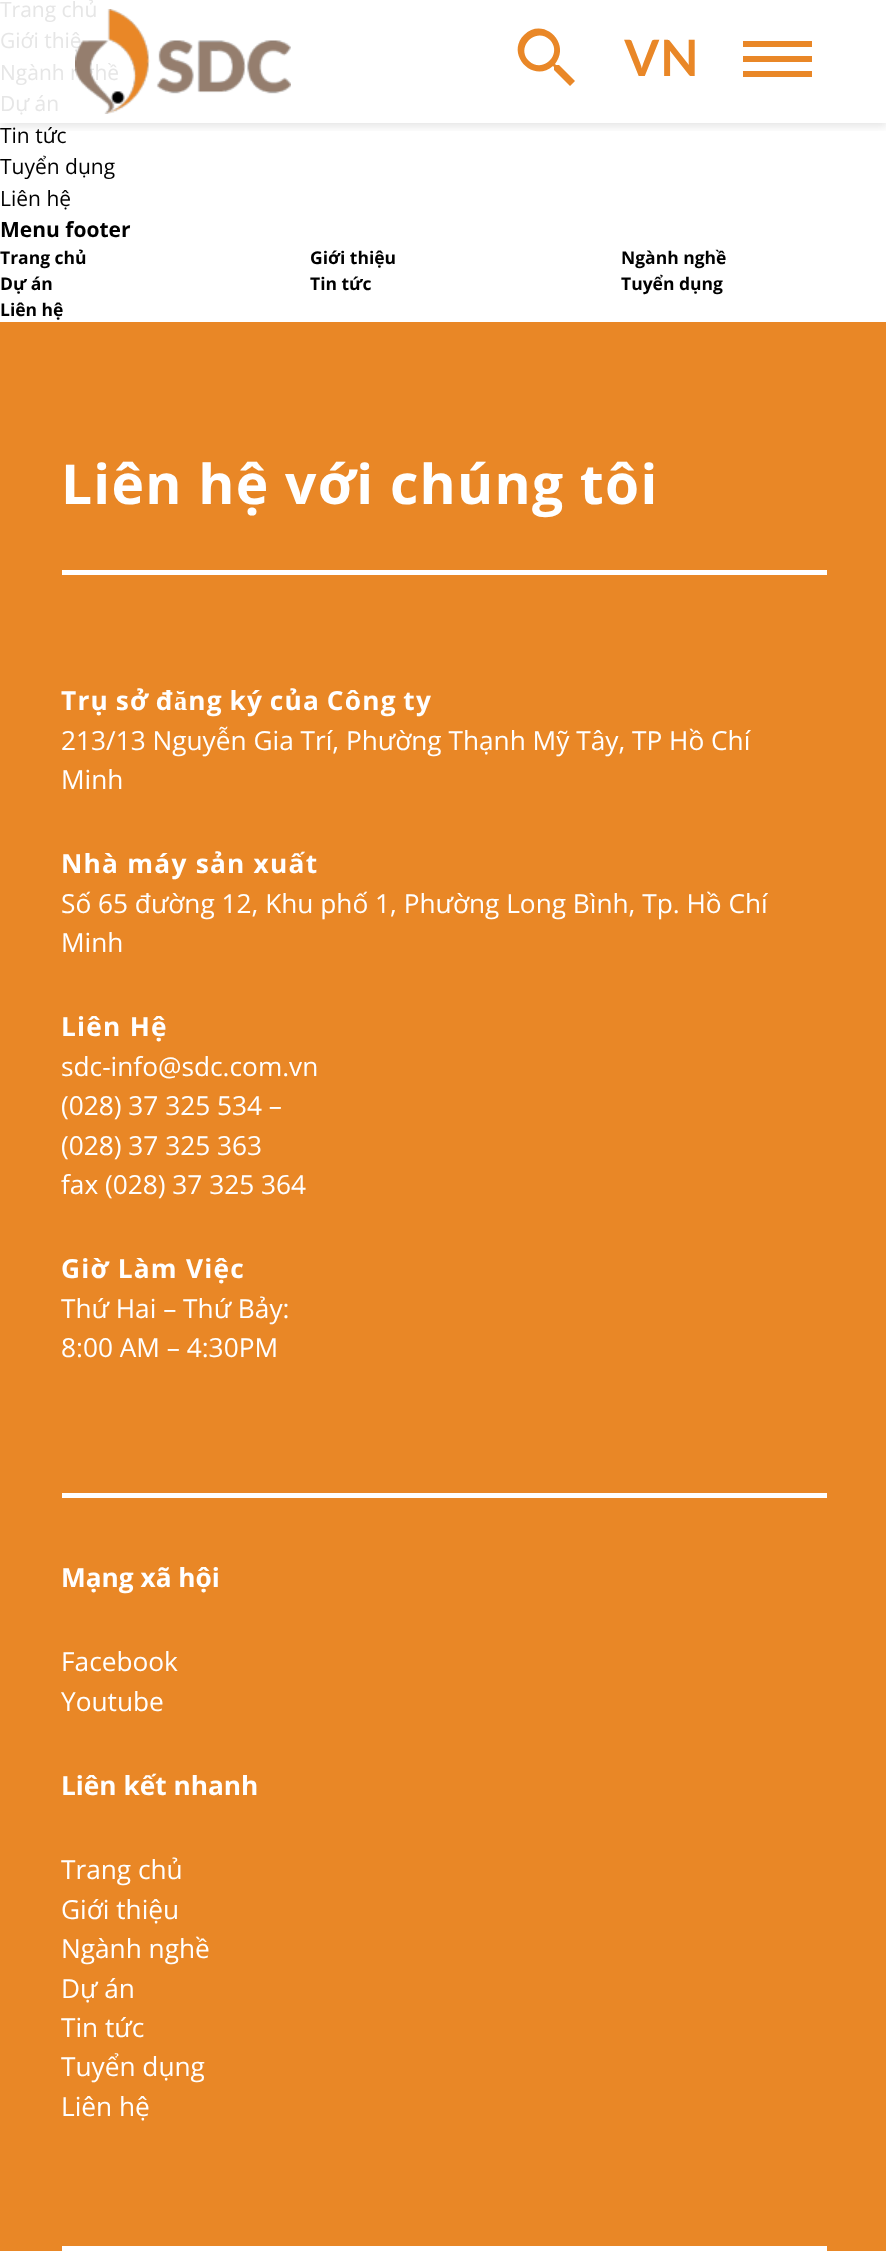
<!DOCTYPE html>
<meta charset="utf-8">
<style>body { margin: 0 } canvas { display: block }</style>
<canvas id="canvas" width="886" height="2251"></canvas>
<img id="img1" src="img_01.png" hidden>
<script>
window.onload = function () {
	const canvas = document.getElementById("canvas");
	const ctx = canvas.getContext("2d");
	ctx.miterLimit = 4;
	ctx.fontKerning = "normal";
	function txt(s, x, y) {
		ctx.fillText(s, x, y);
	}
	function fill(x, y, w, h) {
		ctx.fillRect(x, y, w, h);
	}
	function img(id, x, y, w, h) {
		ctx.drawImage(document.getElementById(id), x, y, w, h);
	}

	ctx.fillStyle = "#FFFFFF";
	fill(0, 0, 886, 2251);
	ctx.save();
	ctx.beginPath();
	ctx.rect(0, 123, 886, 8);
	ctx.clip();
	ctx.fillStyle = "rgba(0, 0, 0, 0.11)";
	ctx.filter = "blur(5px)";
	ctx.beginPath();
	ctx.rect(0, 3, 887, 123);
	ctx.fill();
	ctx.filter = "none";
	ctx.restore();
	ctx.fillStyle = "#E98727";
	ctx.beginPath();
	ctx.moveTo(529, 61);
	ctx.bezierCurveTo(543, 74, 563, 54, 550, 40);
	ctx.bezierCurveTo(536, 26, 515, 47, 529, 61);
	ctx.closePath();
	ctx.moveTo(559, 65);
	ctx.lineTo(575, 81);
	ctx.lineTo(570, 86);
	ctx.lineTo(554, 70);
	ctx.lineTo(554, 67);
	ctx.lineTo(553, 66);
	ctx.bezierCurveTo(533, 84, 505, 54, 524, 35);
	ctx.bezierCurveTo(543, 16, 572, 43, 555, 64);
	ctx.lineTo(556, 65);
	ctx.closePath();
	ctx.fill();
	fill(743, 41, 69, 6);
	fill(743, 56, 69, 6);
	fill(743, 71, 69, 6);
	ctx.fillStyle = "#E98726";
	fill(0, 322, 886, 1929);
	ctx.fillStyle = "#FFFFFF";
	fill(62, 570, 765, 5);
	fill(62, 1493, 765, 5);
	fill(62, 2246, 765, 5);
	ctx.font = "21px Open Sans";
	ctx.fillStyle = "#E6E6E6";
	txt("Trang chủ", 0, 17);
	txt("Giới thiệ", 0, 48);
	txt("Ngành nghề", 0, 80);
	txt("Dự án", 0, 111);
	ctx.fillStyle = "#000000";
	txt("Tin tức", 0, 143);
	txt("Tuyển dụng", 0, 174);
	txt("Liên hệ", 0, 206);
	ctx.font = "bold 21px Open Sans";
	txt("Menu footer", 0, 237);
	ctx.font = "bold 17.5px Open Sans";
	txt("Trang chủ", 0, 264);
	txt("Giới thiệu", 310, 264);
	txt("Ngành nghề", 621, 264);
	txt("Dự án", 0, 290);
	txt("Tin tức", 310, 290);
	txt("Tuyển dụng", 621, 290);
	txt("Liên hệ", 0, 316);
	img("img1", 75, 9, 216, 105);
	ctx.letterSpacing = "1px";
	ctx.font = "bold 50px Lato";
	ctx.fillStyle = "#E98727";
	txt("VN", 624, 76);
	ctx.letterSpacing = "1.25px";
	ctx.font = "bold 55.1px Open Sans";
	ctx.fillStyle = "#FFFFFF";
	txt("Liên hệ với chúng tôi", 61, 504);
	ctx.wordSpacing = "-1.5px";
	ctx.font = "bold 26.25px Open Sans";
	txt("Trụ sở đăng ký của Công ty", 61, 710);
	ctx.letterSpacing = "0px";
	ctx.wordSpacing = "0px";
	ctx.font = "26.25px Open Sans";
	txt("213/13 Nguyễn Gia Trí, Phường Thạnh Mỹ Tây, TP Hồ Chí", 61, 750);
	txt("Minh", 61, 789);
	ctx.letterSpacing = "1.25px";
	ctx.font = "bold 26.25px Open Sans";
	txt("Nhà máy sản xuất", 61, 873);
	ctx.letterSpacing = "0px";
	ctx.font = "26.25px Open Sans";
	txt("Số 65 đường 12, Khu phố 1, Phường Long Bình, Tp. Hồ Chí", 61, 913);
	txt("Minh", 61, 952);
	ctx.letterSpacing = "1.25px";
	ctx.font = "bold 26.25px Open Sans";
	txt("Liên Hệ", 61, 1036);
	ctx.letterSpacing = "0px";
	ctx.font = "26.25px Open Sans";
	txt("sdc-info@sdc.com.vn", 61, 1076);
	txt("(028) 37 325 534 –", 61, 1115);
	txt("(028) 37 325 363", 61, 1155);
	txt("fax (028) 37 325 364", 61, 1194);
	ctx.letterSpacing = "1.25px";
	ctx.font = "bold 26.25px Open Sans";
	txt("Giờ Làm Việc", 61, 1278);
	ctx.letterSpacing = "0px";
	ctx.font = "26.25px Open Sans";
	txt("Thứ Hai – Thứ Bảy:", 61, 1318);
	txt("8:00 AM – 4:30PM", 61, 1357);
	ctx.font = "bold 26.25px Open Sans";
	txt("Mạng xã hội", 61, 1587);
	ctx.font = "26.25px Open Sans";
	txt("Facebook", 61, 1671);
	txt("Youtube", 61, 1711);
	ctx.font = "bold 26.25px Open Sans";
	txt("Liên kết nhanh", 61, 1795);
	ctx.font = "26.25px Open Sans";
	txt("Trang chủ", 61, 1879);
	txt("Giới thiệu", 61, 1919);
	txt("Ngành nghề", 61, 1958);
	txt("Dự án", 61, 1998);
	txt("Tin tức", 61, 2037);
	txt("Tuyển dụng", 61, 2076);
	txt("Liên hệ", 61, 2116);
};
</script>
